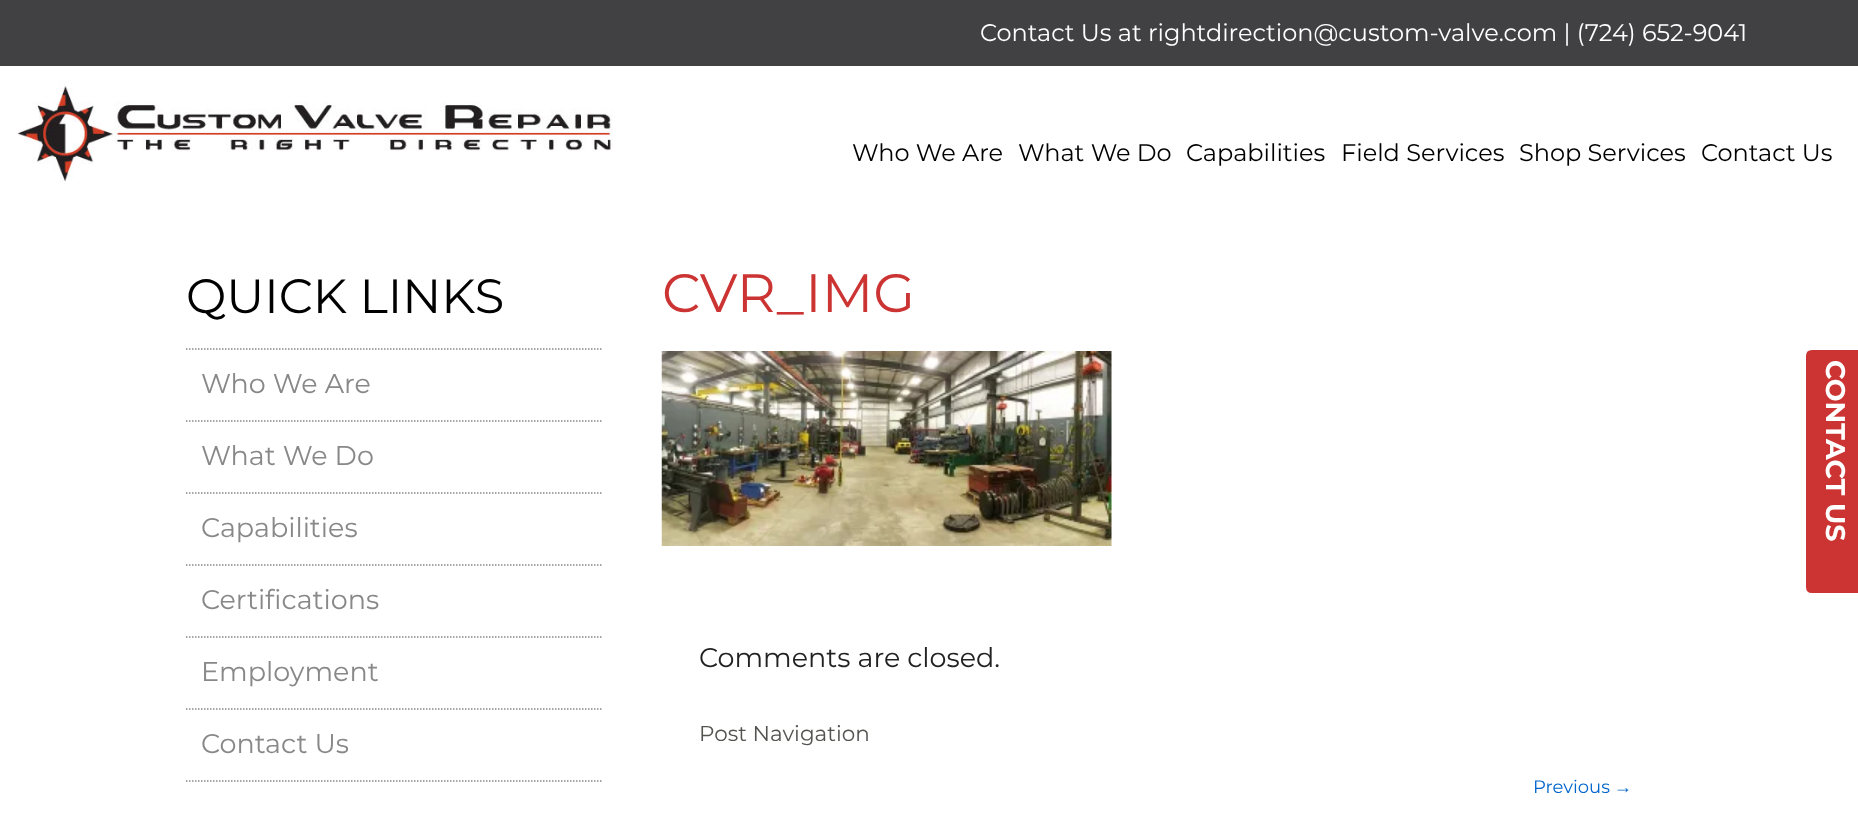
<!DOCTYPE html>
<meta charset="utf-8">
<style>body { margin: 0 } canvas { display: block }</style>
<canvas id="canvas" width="1858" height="830"></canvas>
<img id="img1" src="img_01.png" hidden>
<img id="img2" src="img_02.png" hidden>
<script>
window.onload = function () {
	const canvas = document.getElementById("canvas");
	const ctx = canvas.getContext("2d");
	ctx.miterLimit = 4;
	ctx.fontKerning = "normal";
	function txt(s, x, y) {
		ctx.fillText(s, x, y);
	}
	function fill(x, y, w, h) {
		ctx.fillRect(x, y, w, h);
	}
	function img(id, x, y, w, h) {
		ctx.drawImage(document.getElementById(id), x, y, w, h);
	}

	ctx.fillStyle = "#FFFFFF";
	fill(0, 0, 1858, 830);
	ctx.fillStyle = "#414042";
	fill(0, 0, 1858, 66);
	img("img1", 18, 81, 595, 101);
	ctx.save();
	ctx.beginPath();
	ctx.rect(186, 266, 416, 516);
	ctx.clip();
	ctx.beginPath();
	ctx.moveTo(186, 349);
	ctx.lineTo(604.5, 349);
	ctx.strokeStyle = "#888888";
	ctx.lineWidth = 1.5;
	ctx.setLineDash([1.5, 1.5]);
	ctx.stroke();
	ctx.beginPath();
	ctx.moveTo(186, 421);
	ctx.lineTo(604.5, 421);
	ctx.stroke();
	ctx.beginPath();
	ctx.moveTo(186, 493);
	ctx.lineTo(604.5, 493);
	ctx.stroke();
	ctx.beginPath();
	ctx.moveTo(186, 565);
	ctx.lineTo(604.5, 565);
	ctx.stroke();
	ctx.beginPath();
	ctx.moveTo(186, 637);
	ctx.lineTo(604.5, 637);
	ctx.stroke();
	ctx.beginPath();
	ctx.moveTo(186, 709);
	ctx.lineTo(604.5, 709);
	ctx.stroke();
	ctx.beginPath();
	ctx.moveTo(186, 781);
	ctx.lineTo(604.5, 781);
	ctx.stroke();
	ctx.restore();
	img("img2", 661, 351, 451, 195);
	ctx.fillStyle = "#CC3333";
	ctx.beginPath();
	ctx.moveTo(1812, 351);
	ctx.lineTo(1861, 351);
	ctx.lineTo(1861, 592);
	ctx.lineTo(1812, 592);
	ctx.bezierCurveTo(1809, 592, 1807, 590, 1807, 587);
	ctx.lineTo(1807, 356);
	ctx.bezierCurveTo(1807, 353, 1809, 351, 1812, 351);
	ctx.closePath();
	ctx.fill();
	ctx.strokeStyle = "#CC3333";
	ctx.lineWidth = 2;
	ctx.stroke();
	ctx.font = "24px Montserrat";
	ctx.fillStyle = "#FFFFFF";
	txt("Contact Us at rightdirection@custom-valve.com | (724) 652-9041", 980, 41);
	ctx.fillStyle = "#000000";
	txt("Who We Are", 852, 161);
	txt("What We Do", 1018, 161);
	txt("Capabilities", 1186, 161);
	txt("Field Services", 1341, 161);
	txt("Shop Services", 1519, 161);
	txt("Contact Us", 1701, 161);
	ctx.font = "48px Montserrat";
	txt("QUICK LINKS", 186, 313);
	ctx.font = "27px Montserrat";
	ctx.fillStyle = "#888888";
	txt("Who We Are", 201, 393);
	txt("What We Do", 201, 465);
	txt("Capabilities", 201, 537);
	txt("Certifications", 201, 609);
	txt("Employment", 201, 681);
	txt("Contact Us", 201, 753);
	ctx.font = "54px Montserrat";
	ctx.fillStyle = "#CC3333";
	txt("CVR_IMG", 662, 312);
	ctx.font = "27px Montserrat";
	ctx.fillStyle = "#222222";
	txt("Comments are closed.", 699, 667);
	ctx.font = "21.5px Montserrat";
	ctx.fillStyle = "#545350";
	txt("Post Navigation", 699, 741);
	ctx.font = "18px Montserrat";
	ctx.fillStyle = "#0066CC";
	txt("Previous", 1533, 793);
	ctx.font = "18px Liberation Sans";
	txt("→", 1614, 793);
	ctx.font = "bold 27px Montserrat";
	ctx.fillStyle = "#FFFFFF";
	ctx.save();
	ctx.translate(1826, 360);
	ctx.rotate(90 * Math.PI / 180);
	ctx.fillText("CONTACT US", 0, 0);
	ctx.restore();
};
</script>
